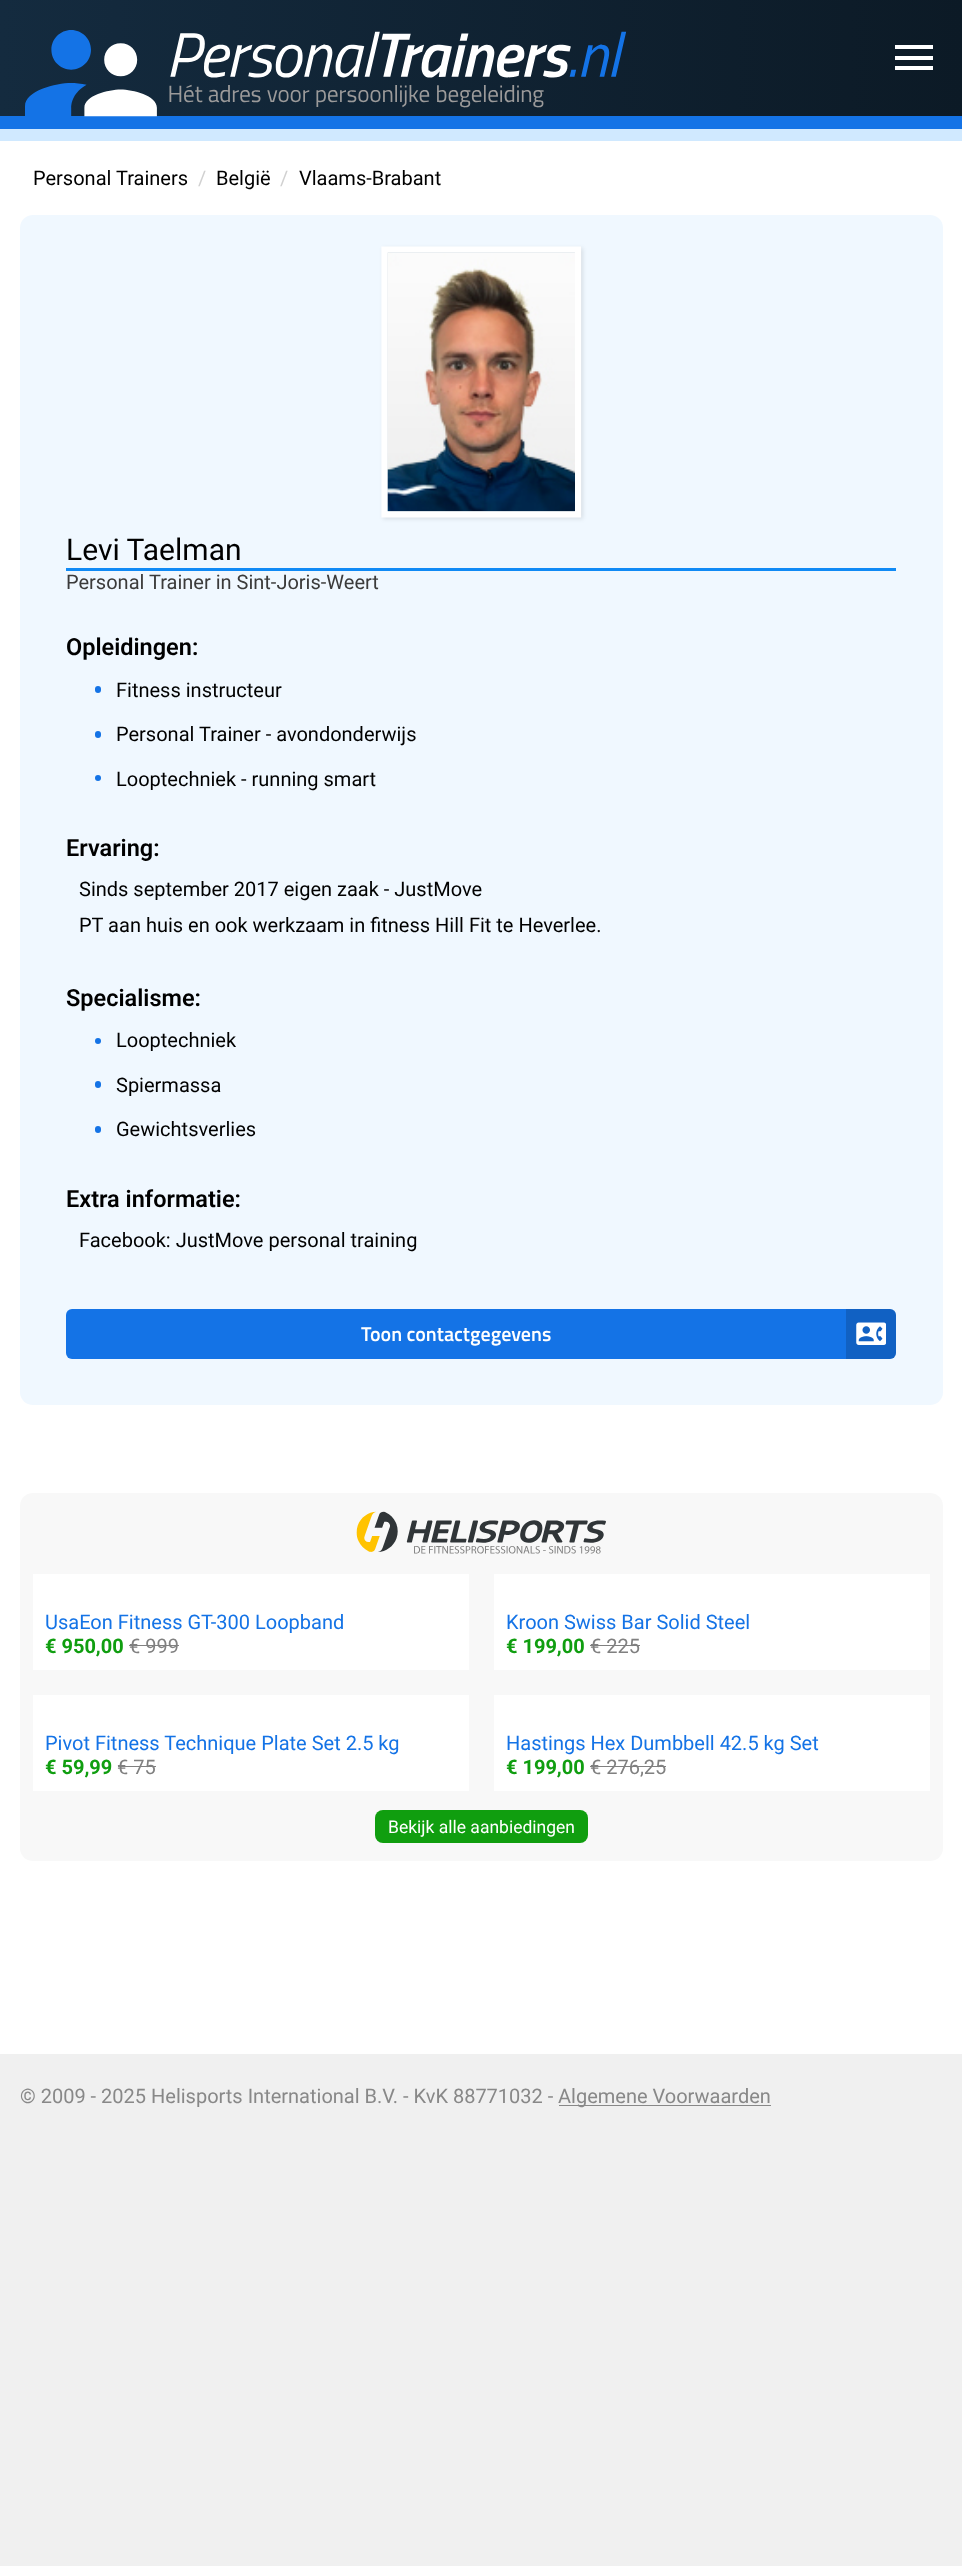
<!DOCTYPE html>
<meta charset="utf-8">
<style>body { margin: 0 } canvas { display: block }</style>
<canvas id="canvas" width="962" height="2566"></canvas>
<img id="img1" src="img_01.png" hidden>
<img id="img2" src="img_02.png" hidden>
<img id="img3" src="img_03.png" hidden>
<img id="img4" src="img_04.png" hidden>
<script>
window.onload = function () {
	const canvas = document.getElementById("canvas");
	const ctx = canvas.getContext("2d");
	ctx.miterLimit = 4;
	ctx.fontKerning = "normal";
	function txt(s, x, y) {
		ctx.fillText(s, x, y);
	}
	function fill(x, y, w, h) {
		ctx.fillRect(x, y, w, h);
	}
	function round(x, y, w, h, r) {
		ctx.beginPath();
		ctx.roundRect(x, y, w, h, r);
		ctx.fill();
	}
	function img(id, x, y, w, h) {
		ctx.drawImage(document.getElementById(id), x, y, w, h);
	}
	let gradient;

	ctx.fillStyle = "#F0F0F0";
	fill(0, 0, 962, 2566);
	gradient = ctx.createLinearGradient(0, 58, 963, 58);
	gradient.addColorStop(0, "#142B3F");
	gradient.addColorStop(1, "#0C1A26");
	ctx.fillStyle = gradient;
	fill(0, 0, 962, 116);
	ctx.fillStyle = "#1473E6";
	fill(0, 116, 962, 13);
	img("img1", 25, 30, 602, 87);
	ctx.fillStyle = "#FFFFFF";
	fill(895, 45, 38, 4);
	fill(895, 56, 38, 4);
	fill(895, 66, 38, 4);
	fill(0, 141, 962, 1913);
	ctx.fillStyle = "#D0E9FF";
	fill(0, 129, 962, 12);
	ctx.fillStyle = "#F0F8FF";
	round(20, 215, 923, 1190, 13);
	ctx.fillStyle = "rgba(0, 0, 0, 0.1)";
	ctx.filter = "blur(2px)";
	ctx.beginPath();
	ctx.roundRect(383, 248, 200, 271, 1);
	ctx.fill();
	ctx.filter = "none";
	ctx.beginPath();
	ctx.moveTo(384.5, 249.5);
	ctx.lineTo(578, 249.5);
	ctx.lineTo(578, 514.5);
	ctx.lineTo(384.5, 514.5);
	ctx.closePath();
	ctx.strokeStyle = "#FFFFFF";
	ctx.lineWidth = 6.2;
	ctx.stroke();
	img("img2", 387, 253, 188, 259);
	ctx.fillStyle = "#108AF5";
	fill(66, 568, 830, 3);
	ctx.fillStyle = "#1473E6";
	round(95, 686, 6, 7, 3);
	round(95, 731, 6, 7, 3);
	ctx.beginPath();
	ctx.arc(98, 778, 3, 0, Math.PI * 2);
	ctx.fill();
	ctx.beginPath();
	ctx.arc(98, 1041, 3, 0, Math.PI * 2);
	ctx.fill();
	round(95, 1081, 6, 7, 3);
	round(95, 1126, 6, 7, 3);
	round(66, 1309, 830, 50, 6);
	ctx.fillStyle = "rgba(0, 0, 0, 0.15)";
	ctx.beginPath();
	ctx.roundRect(846, 1309, 50, 50, [0, 6, 6, 0]);
	ctx.fill();
	img("img3", 856, 1322, 30, 23);
	ctx.fillStyle = "#F8F8F8";
	round(20, 1493, 923, 368, 13);
	img("img4", 356, 1511, 250, 43);
	ctx.fillStyle = "#FFFFFF";
	fill(33, 1574, 436, 96);
	ctx.fillStyle = "#808080";
	fill(129, 1645, 50, 1);
	ctx.fillStyle = "#FFFFFF";
	fill(494, 1574, 436, 96);
	ctx.fillStyle = "#808080";
	fill(590, 1645, 50, 1);
	ctx.fillStyle = "#FFFFFF";
	fill(33, 1695, 436, 96);
	ctx.fillStyle = "#808080";
	fill(118, 1766, 38, 1);
	ctx.fillStyle = "#FFFFFF";
	fill(494, 1695, 436, 96);
	ctx.fillStyle = "#808080";
	fill(590, 1766, 76, 1);
	ctx.fillStyle = "#109E0F";
	round(375, 1810, 213, 33, 8);
	ctx.fillStyle = "#888888";
	fill(559, 2105, 212, 1);
	ctx.font = "20px Roboto";
	ctx.fillStyle = "#000000";
	txt("Personal Trainers", 33, 185);
	ctx.fillStyle = "#D1D1D1";
	txt("/", 198, 185);
	ctx.fillStyle = "#000000";
	txt("België", 216, 185);
	ctx.fillStyle = "#D1D1D1";
	txt("/", 280, 185);
	ctx.fillStyle = "#000000";
	txt("Vlaams-Brabant", 299, 185);
	ctx.font = "30px Roboto";
	txt("Levi Taelman", 66, 560);
	ctx.font = "20px Roboto";
	ctx.fillStyle = "#3B3B3B";
	txt("Personal Trainer in Sint-Joris-Weert", 66, 589);
	ctx.font = "600 23.5px Roboto";
	ctx.fillStyle = "#000000";
	txt("Opleidingen:", 66, 655);
	ctx.font = "20px Roboto";
	txt("Fitness instructeur", 116, 697);
	txt("Personal Trainer - avondonderwijs", 116, 741);
	txt("Looptechniek - running smart", 116, 786);
	ctx.font = "600 23.5px Roboto";
	txt("Ervaring:", 66, 856);
	ctx.font = "20px Roboto";
	txt("Sinds september 2017 eigen zaak - JustMove", 79, 896);
	txt("PT aan huis en ook werkzaam in fitness Hill Fit te Heverlee.", 79, 932);
	ctx.font = "600 23.5px Roboto";
	txt("Specialisme:", 66, 1006);
	ctx.font = "20px Roboto";
	txt("Looptechniek", 116, 1047);
	txt("Spiermassa", 116, 1092);
	txt("Gewichtsverlies", 116, 1136);
	ctx.font = "600 23.5px Roboto";
	txt("Extra informatie:", 66, 1207);
	ctx.font = "20px Roboto";
	txt("Facebook: JustMove personal training", 79, 1247);
	ctx.font = "600 20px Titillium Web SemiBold";
	ctx.fillStyle = "#FFFFFF";
	txt("Toon contactgegevens", 361, 1341);
	ctx.font = "20px Roboto";
	ctx.fillStyle = "#1473E6";
	txt("UsaEon Fitness GT-300 Loopband", 45, 1629);
	ctx.font = "bold 20px Roboto";
	ctx.fillStyle = "#109E10";
	txt("€ 950,00", 45, 1653);
	ctx.font = "20px Roboto";
	ctx.fillStyle = "#808080";
	txt("€ 999", 129, 1653);
	ctx.fillStyle = "#1473E6";
	txt("Kroon Swiss Bar Solid Steel", 506, 1629);
	ctx.font = "bold 20px Roboto";
	ctx.fillStyle = "#109E10";
	txt("€ 199,00", 506, 1653);
	ctx.font = "20px Roboto";
	ctx.fillStyle = "#808080";
	txt("€ 225", 590, 1653);
	ctx.fillStyle = "#1473E6";
	txt("Pivot Fitness Technique Plate Set 2.5 kg", 45, 1750);
	ctx.font = "bold 20px Roboto";
	ctx.fillStyle = "#109E10";
	txt("€ 59,99", 45, 1774);
	ctx.font = "20px Roboto";
	ctx.fillStyle = "#808080";
	txt("€ 75", 117, 1774);
	ctx.fillStyle = "#1473E6";
	txt("Hastings Hex Dumbbell 42.5 kg Set", 506, 1750);
	ctx.font = "bold 20px Roboto";
	ctx.fillStyle = "#109E10";
	txt("€ 199,00", 506, 1774);
	ctx.font = "20px Roboto";
	ctx.fillStyle = "#808080";
	txt("€ 276,25", 590, 1774);
	ctx.font = "17.5px Roboto";
	ctx.fillStyle = "#FFFFFF";
	txt("Bekijk alle aanbiedingen", 388, 1833);
	ctx.font = "20px Roboto";
	ctx.fillStyle = "#888888";
	txt("© 2009 - 2025 Helisports International B.V. - KvK 88771032 -", 20, 2103);
	txt("Algemene Voorwaarden", 558, 2103);
};
</script>
